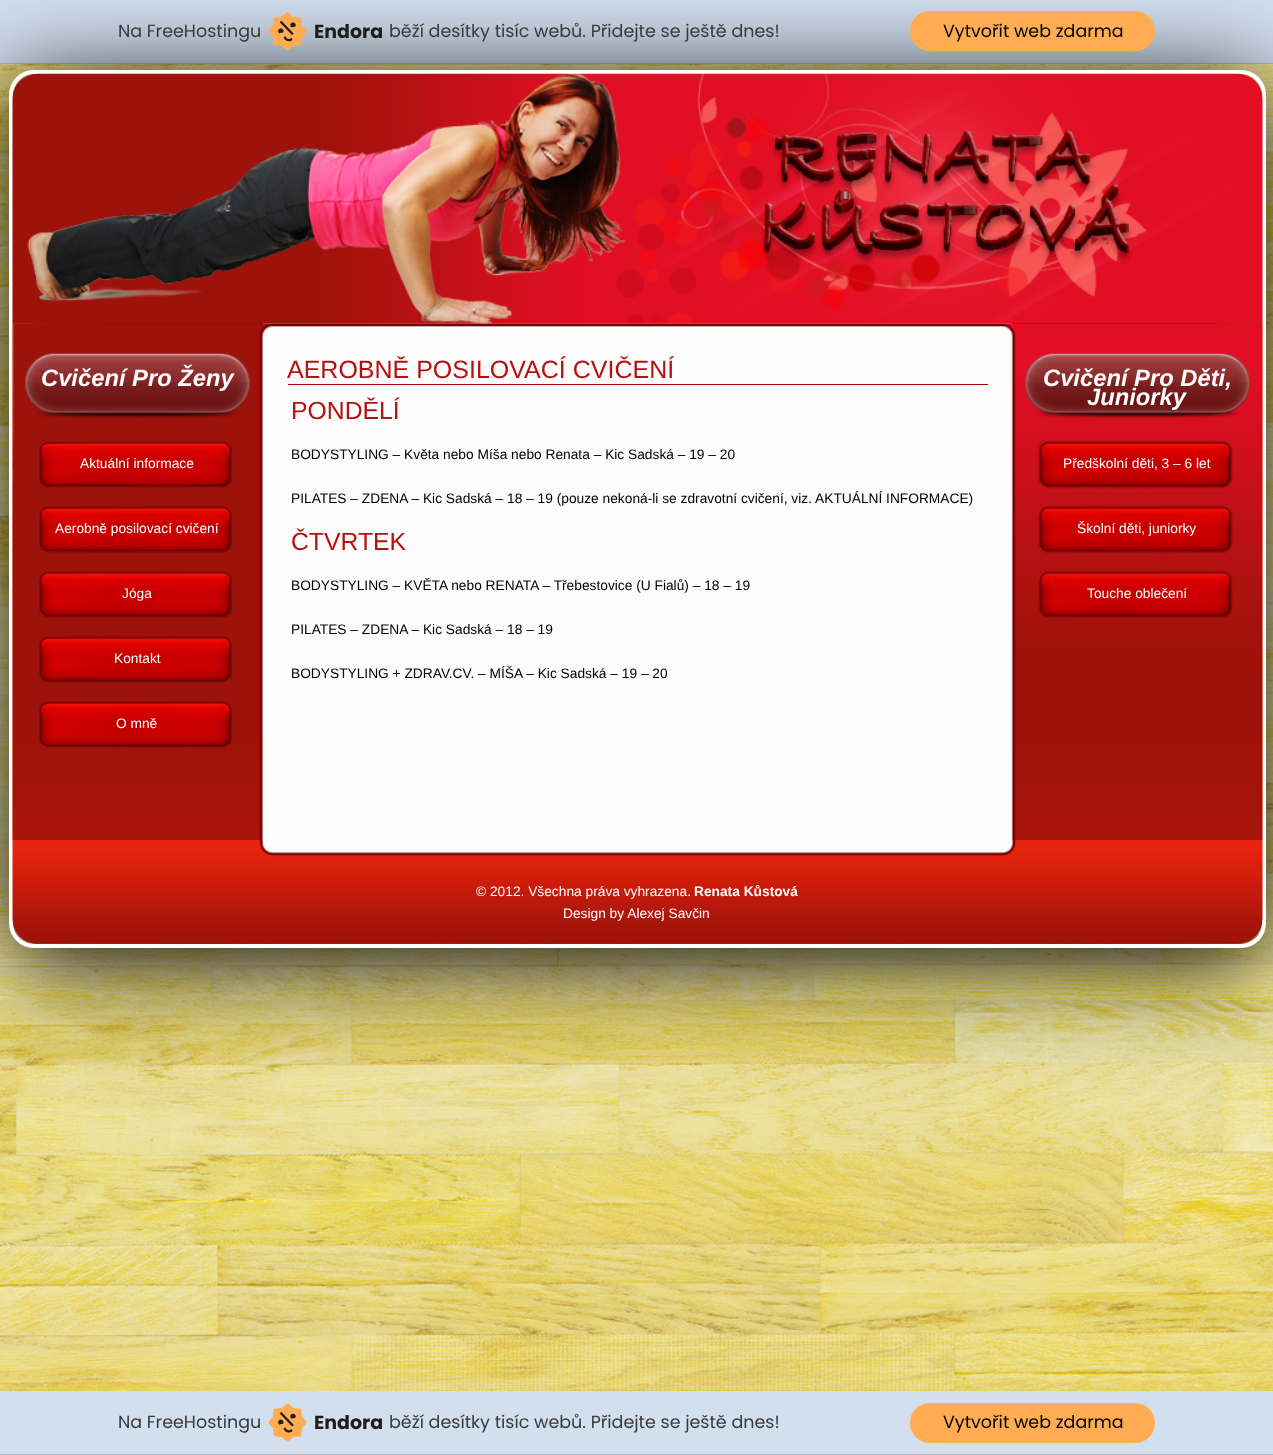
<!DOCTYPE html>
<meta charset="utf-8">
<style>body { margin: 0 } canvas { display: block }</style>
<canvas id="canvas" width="1273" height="1455"></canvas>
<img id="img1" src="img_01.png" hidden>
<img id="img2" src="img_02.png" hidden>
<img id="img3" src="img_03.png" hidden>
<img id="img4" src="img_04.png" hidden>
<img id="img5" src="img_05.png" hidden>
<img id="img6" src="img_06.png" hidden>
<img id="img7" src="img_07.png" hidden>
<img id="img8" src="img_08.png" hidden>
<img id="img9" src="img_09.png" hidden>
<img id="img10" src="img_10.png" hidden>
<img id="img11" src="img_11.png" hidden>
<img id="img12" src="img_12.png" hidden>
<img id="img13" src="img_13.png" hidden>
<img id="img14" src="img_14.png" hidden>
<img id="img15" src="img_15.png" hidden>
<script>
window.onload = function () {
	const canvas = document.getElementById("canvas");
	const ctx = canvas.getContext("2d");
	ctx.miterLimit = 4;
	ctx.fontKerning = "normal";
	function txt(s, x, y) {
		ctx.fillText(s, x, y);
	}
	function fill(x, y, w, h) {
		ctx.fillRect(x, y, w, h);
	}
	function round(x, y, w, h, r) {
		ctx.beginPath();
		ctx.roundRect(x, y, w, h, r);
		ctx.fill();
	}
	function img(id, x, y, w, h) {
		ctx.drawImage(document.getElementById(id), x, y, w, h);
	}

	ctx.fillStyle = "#FFFFFF";
	fill(0, 0, 1273, 1455);
	img("img1", 0, 64, 1273, 1327);
	ctx.fillStyle = "#D2DFEF";
	fill(0, 0, 1273, 63);
	ctx.fillStyle = "#BEBFC4";
	fill(0, 63, 1273, 1);
	ctx.fillStyle = "#000000";
	ctx.filter = "blur(48px)";
	ctx.beginPath();
	ctx.roundRect(9, 84, 1257, 877, 25);
	ctx.fill();
	ctx.filter = "none";
	img("img2", 268, 12, 39, 39);
	ctx.fillStyle = "#FFAC52";
	round(910, 11, 245, 40, 20);
	ctx.beginPath();
	ctx.roundRect(11, 72, 1253, 874, 23);
	ctx.strokeStyle = "#FFFFFF";
	ctx.lineWidth = 4;
	ctx.stroke();
	img("img3", 12, 73, 1251, 251);
	img("img4", 12, 323, 1251, 517);
	img("img5", 12, 323, 1251, 517);
	img("img6", 25, 353, 225, 66);
	img("img7", 39, 441, 193, 47);
	img("img7", 39, 506, 193, 47);
	img("img8", 39, 571, 193, 47);
	img("img7", 39, 636, 193, 47);
	img("img9", 39, 701, 193, 47);
	ctx.fillStyle = "#AF0000";
	fill(288, 384, 700, 1);
	img("img10", 1025, 353, 225, 66);
	img("img11", 1038, 440, 196, 49);
	img("img12", 1038, 505, 195, 49);
	img("img13", 1038, 571, 195, 47);
	img("img14", 12, 840, 1251, 104);
	ctx.fillStyle = "#D2DFEF";
	fill(0, 1391, 1273, 63);
	ctx.fillStyle = "#BEBFC4";
	fill(0, 1454, 1273, 1);
	img("img15", 268, 1403, 39, 39);
	ctx.fillStyle = "#FFAC52";
	round(910, 1403, 245, 40, 20);
	ctx.font = "17.5px Poppins";
	ctx.fillStyle = "#3A3A3A";
	txt("Na FreeHostingu", 118, 37);
	ctx.font = "bold 19px Poppins";
	ctx.fillStyle = "#1E1E1E";
	txt("Endora", 314, 38);
	ctx.font = "17.5px Poppins";
	ctx.fillStyle = "#3A3A3A";
	txt("běží desítky tisíc webů. Přidejte se ještě dnes!", 389, 37);
	ctx.fillStyle = "#000000";
	txt("Vytvořit web zdarma", 943, 37);
	ctx.font = "italic bold 23.75px Liberation Sans";
	ctx.fillStyle = "#FFFFFF";
	txt("Cvičení Pro Ženy", 41, 386);
	ctx.font = "13.75px Liberation Sans";
	txt("Aktuální informace", 80, 468);
	txt("Aerobně posilovací cvičení", 55, 533);
	txt("Jóga", 122, 598);
	txt("Kontakt", 114, 663);
	txt("O mně", 116, 728);
	ctx.font = "25px Liberation Sans";
	ctx.fillStyle = "#B41111";
	txt("AEROBNĚ POSILOVACÍ CVIČENÍ", 287, 378);
	ctx.font = "24.75px Liberation Sans";
	txt("PONDĚLÍ", 291, 419);
	ctx.font = "13.75px Liberation Sans";
	ctx.fillStyle = "#000000";
	txt("BODYSTYLING – Květa nebo Míša nebo Renata – Kic Sadská – 19 – 20", 291, 459);
	txt("PILATES – ZDENA – Kic Sadská – 18 – 19 (pouze nekoná-li se zdravotní cvičení, viz. AKTUÁLNÍ INFORMACE)", 291, 503);
	ctx.font = "24.75px Liberation Sans";
	ctx.fillStyle = "#B41111";
	txt("ČTVRTEK", 291, 550);
	ctx.font = "13.75px Liberation Sans";
	ctx.fillStyle = "#000000";
	txt("BODYSTYLING – KVĚTA nebo RENATA – Třebestovice (U Fialů) – 18 – 19", 291, 590);
	txt("PILATES – ZDENA – Kic Sadská – 18 – 19", 291, 634);
	txt("BODYSTYLING + ZDRAV.CV. – MÍŠA – Kic Sadská – 19 – 20", 291, 678);
	ctx.font = "italic bold 23.75px Liberation Sans";
	ctx.fillStyle = "#FFFFFF";
	txt("Cvičení Pro Děti,", 1043, 386);
	txt("Juniorky", 1087, 405);
	ctx.font = "13.75px Liberation Sans";
	txt("Předškolní děti, 3 – 6 let", 1063, 468);
	txt("Školní děti, juniorky", 1077, 533);
	txt("Touche oblečení", 1087, 598);
	txt("© 2012. Všechna práva vyhrazena.", 476, 896);
	ctx.font = "bold 13.75px Liberation Sans";
	txt("Renata Kůstová", 694, 896);
	ctx.font = "13.75px Liberation Sans";
	txt("Design by Alexej Savčin", 563, 918);
	ctx.font = "17.5px Poppins";
	ctx.fillStyle = "#3A3A3A";
	txt("Na FreeHostingu", 118, 1428);
	ctx.font = "bold 19px Poppins";
	ctx.fillStyle = "#1E1E1E";
	txt("Endora", 314, 1429);
	ctx.font = "17.5px Poppins";
	ctx.fillStyle = "#3A3A3A";
	txt("běží desítky tisíc webů. Přidejte se ještě dnes!", 389, 1428);
	ctx.fillStyle = "#000000";
	txt("Vytvořit web zdarma", 943, 1428);
};
</script>
